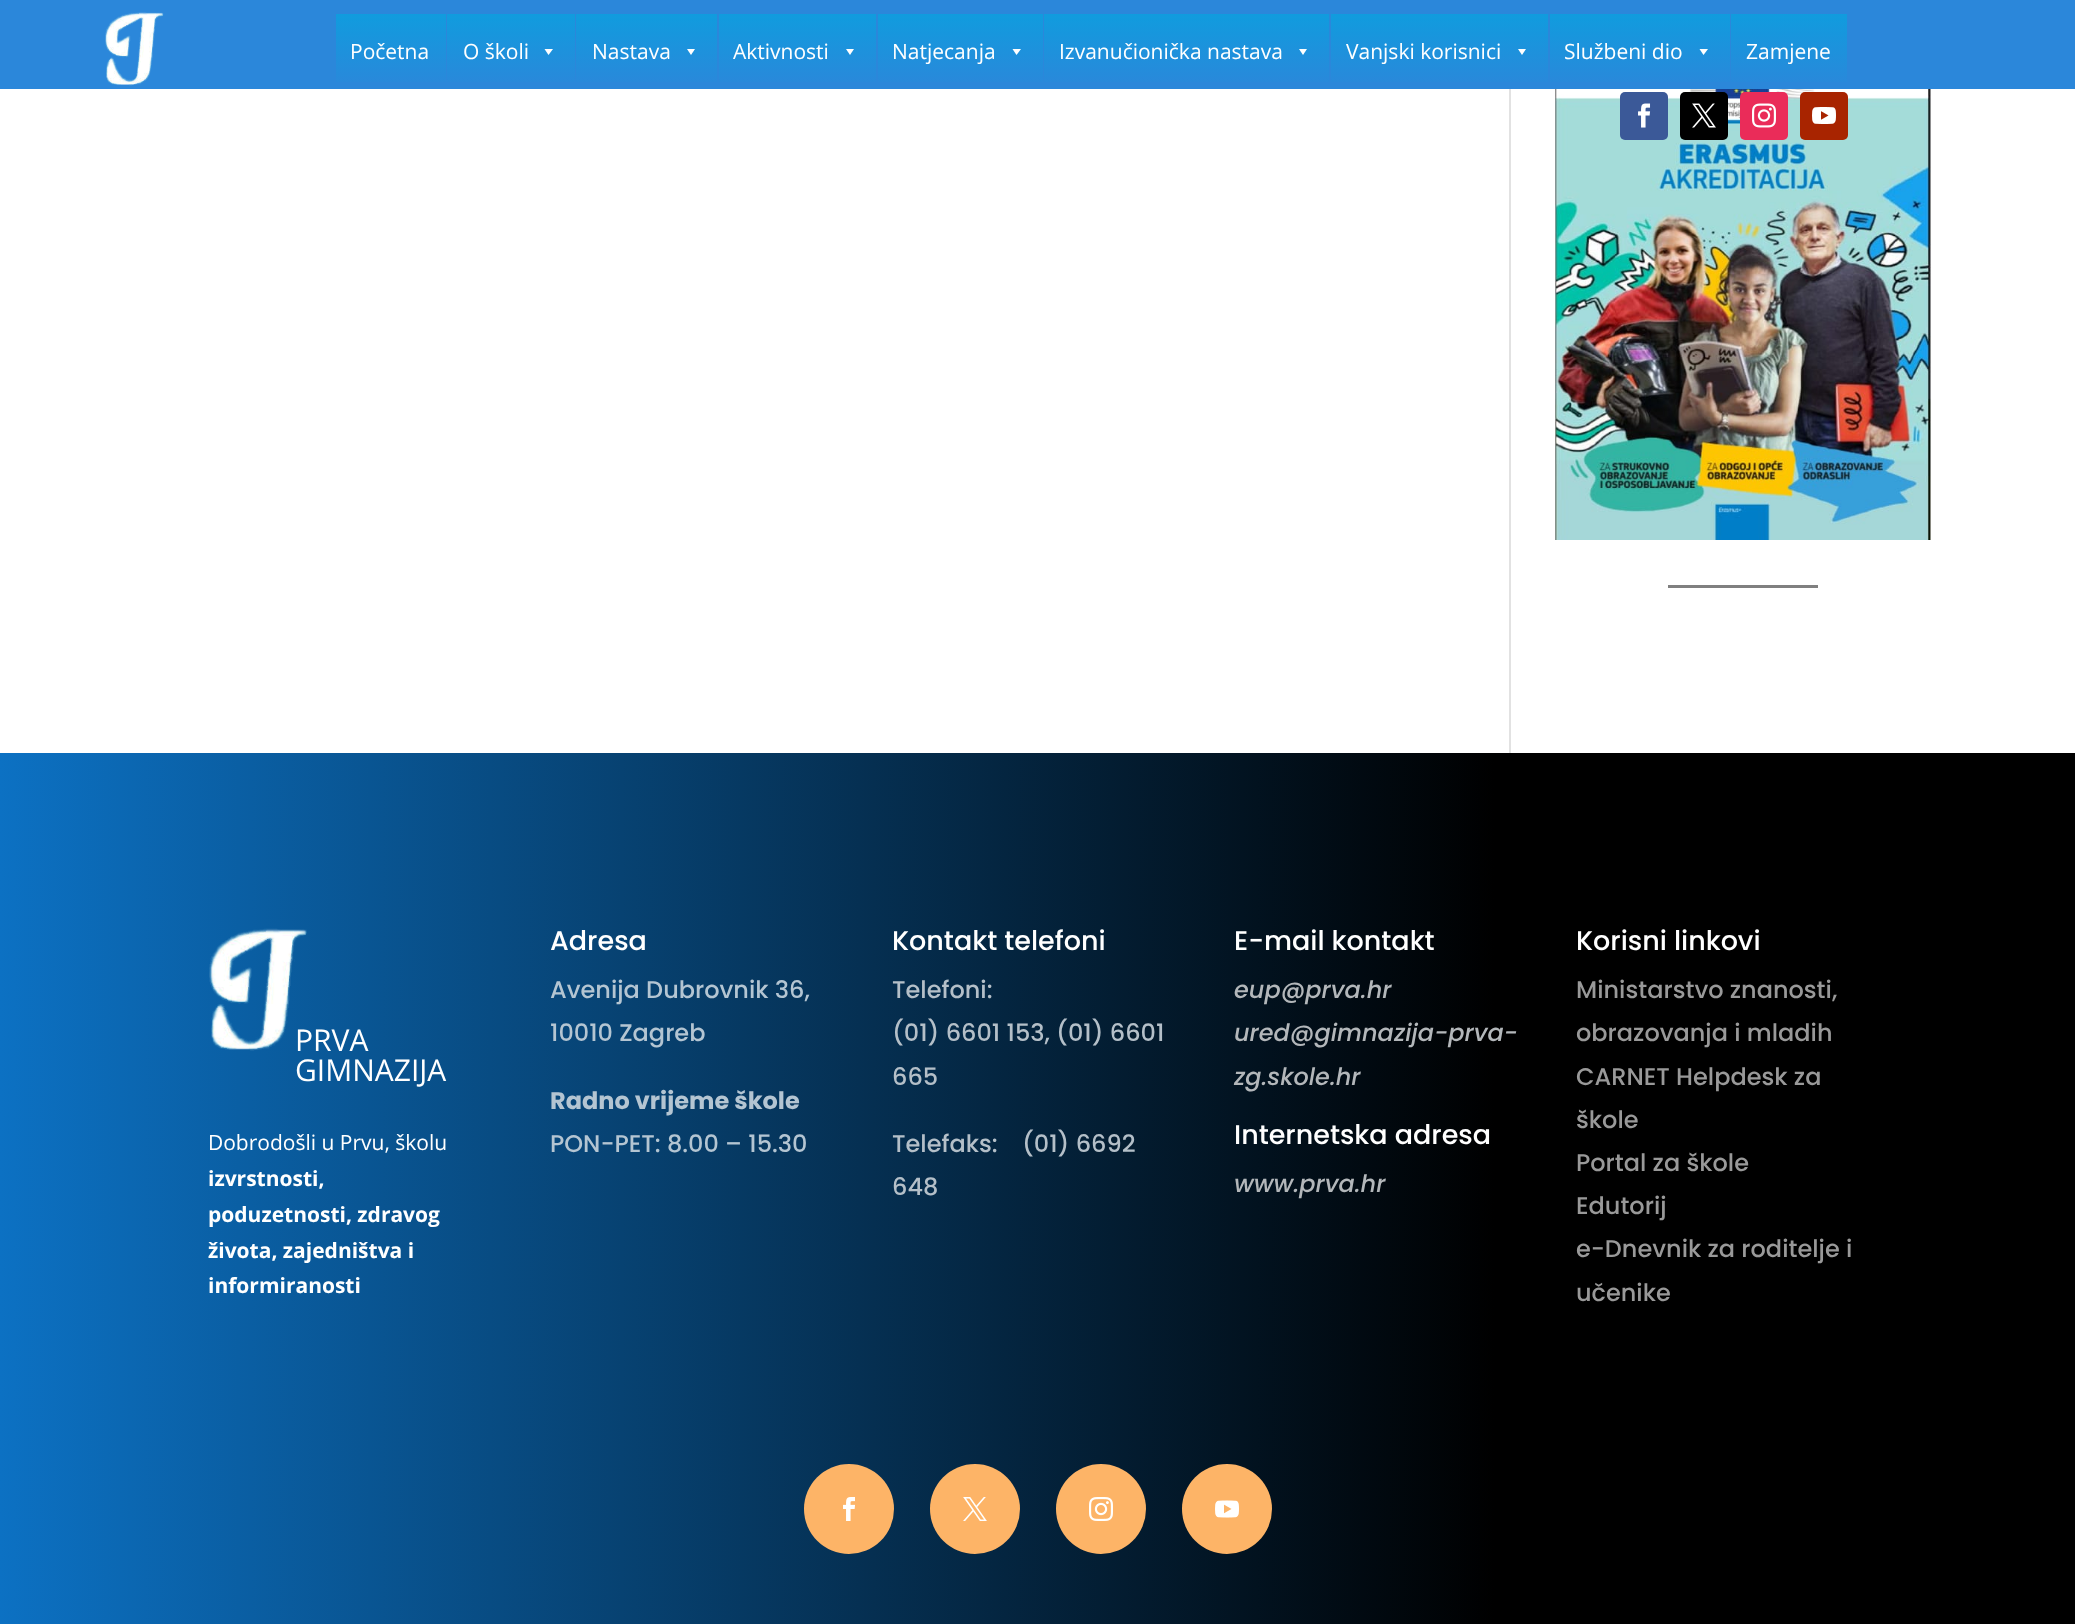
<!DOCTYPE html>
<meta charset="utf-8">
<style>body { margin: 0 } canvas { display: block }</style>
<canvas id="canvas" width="2075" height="1624"></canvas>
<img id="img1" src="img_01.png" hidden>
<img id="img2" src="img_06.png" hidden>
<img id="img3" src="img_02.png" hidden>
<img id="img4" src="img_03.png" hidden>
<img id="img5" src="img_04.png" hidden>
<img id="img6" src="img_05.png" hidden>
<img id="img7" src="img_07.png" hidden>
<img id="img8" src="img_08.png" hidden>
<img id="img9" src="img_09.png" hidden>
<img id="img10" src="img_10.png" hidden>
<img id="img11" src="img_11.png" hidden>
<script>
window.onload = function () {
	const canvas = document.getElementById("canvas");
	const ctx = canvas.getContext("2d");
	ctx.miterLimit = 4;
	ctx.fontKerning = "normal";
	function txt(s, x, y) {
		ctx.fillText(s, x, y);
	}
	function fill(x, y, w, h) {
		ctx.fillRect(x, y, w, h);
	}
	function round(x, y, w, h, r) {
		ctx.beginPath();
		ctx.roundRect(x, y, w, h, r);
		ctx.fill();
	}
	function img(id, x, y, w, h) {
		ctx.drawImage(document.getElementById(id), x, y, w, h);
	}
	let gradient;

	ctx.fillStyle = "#FFFFFF";
	fill(0, 0, 2075, 1624);
	ctx.fillStyle = "#2B87DA";
	fill(0, 0, 2075, 89);
	img("img1", 105, 12, 59, 74);
	gradient = ctx.createLinearGradient(390, 13, 390, 89);
	gradient.addColorStop(0, "#109CDE");
	gradient.addColorStop(1, "#2B87DA");
	ctx.fillStyle = gradient;
	fill(336, 14, 110, 68);
	gradient = ctx.createLinearGradient(510, 13, 510, 89);
	gradient.addColorStop(0, "#109CDE");
	gradient.addColorStop(1, "#2B87DA");
	ctx.fillStyle = gradient;
	fill(447, 14, 128, 68);
	ctx.fillStyle = "#FFFFFF";
	ctx.beginPath();
	ctx.moveTo(553, 49);
	ctx.lineTo(548.5, 55);
	ctx.lineTo(544.5, 49);
	ctx.closePath();
	ctx.fill();
	gradient = ctx.createLinearGradient(646, 13, 646, 89);
	gradient.addColorStop(0, "#109CDE");
	gradient.addColorStop(1, "#2B87DA");
	ctx.fillStyle = gradient;
	fill(576, 14, 141, 68);
	ctx.fillStyle = "#FFFFFF";
	ctx.beginPath();
	ctx.moveTo(695, 49);
	ctx.lineTo(691, 55);
	ctx.lineTo(687, 49);
	ctx.closePath();
	ctx.fill();
	gradient = ctx.createLinearGradient(797, 13, 797, 89);
	gradient.addColorStop(0, "#109CDE");
	gradient.addColorStop(1, "#2B87DA");
	ctx.fillStyle = gradient;
	fill(719, 14, 157, 68);
	ctx.fillStyle = "#FFFFFF";
	ctx.beginPath();
	ctx.moveTo(854, 49);
	ctx.lineTo(850, 55);
	ctx.lineTo(846, 49);
	ctx.closePath();
	ctx.fill();
	gradient = ctx.createLinearGradient(959, 13, 959, 89);
	gradient.addColorStop(0, "#109CDE");
	gradient.addColorStop(1, "#2B87DA");
	ctx.fillStyle = gradient;
	fill(878, 14, 165, 68);
	ctx.fillStyle = "#FFFFFF";
	ctx.beginPath();
	ctx.moveTo(1021, 49);
	ctx.lineTo(1016.5, 55);
	ctx.lineTo(1012.5, 49);
	ctx.closePath();
	ctx.fill();
	gradient = ctx.createLinearGradient(1186, 13, 1186, 89);
	gradient.addColorStop(0, "#109CDE");
	gradient.addColorStop(1, "#2B87DA");
	ctx.fillStyle = gradient;
	fill(1044, 14, 285, 68);
	ctx.fillStyle = "#FFFFFF";
	ctx.beginPath();
	ctx.moveTo(1307, 49);
	ctx.lineTo(1303, 55);
	ctx.lineTo(1299, 49);
	ctx.closePath();
	ctx.fill();
	gradient = ctx.createLinearGradient(1439, 13, 1439, 89);
	gradient.addColorStop(0, "#109CDE");
	gradient.addColorStop(1, "#2B87DA");
	ctx.fillStyle = gradient;
	fill(1331, 14, 217, 68);
	ctx.fillStyle = "#FFFFFF";
	ctx.beginPath();
	ctx.moveTo(1526, 49);
	ctx.lineTo(1522, 55);
	ctx.lineTo(1518, 49);
	ctx.closePath();
	ctx.fill();
	gradient = ctx.createLinearGradient(1639, 13, 1639, 89);
	gradient.addColorStop(0, "#109CDE");
	gradient.addColorStop(1, "#2B87DA");
	ctx.fillStyle = gradient;
	fill(1550, 14, 180, 68);
	ctx.fillStyle = "#FFFFFF";
	ctx.beginPath();
	ctx.moveTo(1708, 49);
	ctx.lineTo(1703.5, 55);
	ctx.lineTo(1699.5, 49);
	ctx.closePath();
	ctx.fill();
	gradient = ctx.createLinearGradient(1788, 13, 1788, 89);
	gradient.addColorStop(0, "#109CDE");
	gradient.addColorStop(1, "#2B87DA");
	ctx.fillStyle = gradient;
	fill(1731, 14, 116, 68);
	img("img2", 1555, 89, 376, 451);
	ctx.fillStyle = "#3B5998";
	round(1620, 92, 48, 48, 5);
	img("img3", 1638, 103, 13, 25);
	ctx.fillStyle = "#000000";
	round(1680, 92, 48, 48, 5);
	img("img4", 1692, 103, 24, 25);
	ctx.fillStyle = "#EA2C59";
	round(1740, 92, 48, 48, 5);
	img("img5", 1752, 103, 24, 25);
	ctx.fillStyle = "#A82400";
	round(1800, 92, 48, 48, 5);
	img("img6", 1812, 107, 24, 17);
	ctx.fillStyle = "#E2E2E2";
	fill(1509, 89, 2, 664);
	ctx.fillStyle = "#808080";
	fill(1668, 585, 150, 3);
	gradient = ctx.createLinearGradient(0, 1247, 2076, 1247);
	gradient.addColorStop(0, "#0C71C3");
	gradient.addColorStop(0.72, "#000000");
	ctx.fillStyle = gradient;
	fill(0, 753, 2075, 871);
	img("img7", 209, 928, 98, 123);
	ctx.fillStyle = "#FDB467";
	ctx.beginPath();
	ctx.arc(849, 1509, 45, 0, Math.PI * 2);
	ctx.fill();
	img("img8", 843, 1497, 12, 24);
	ctx.beginPath();
	ctx.arc(975, 1509, 45, 0, Math.PI * 2);
	ctx.fill();
	img("img9", 963, 1497, 24, 24);
	ctx.beginPath();
	ctx.arc(1101, 1509, 45, 0, Math.PI * 2);
	ctx.fill();
	img("img10", 1089, 1497, 24, 24);
	ctx.beginPath();
	ctx.arc(1227, 1509, 45, 0, Math.PI * 2);
	ctx.fill();
	img("img11", 1215, 1500, 24, 18);
	ctx.font = "21px Open Sans";
	ctx.fillStyle = "#FFFFFF";
	txt("Početna", 350, 59);
	txt("O školi", 463, 59);
	txt("Nastava", 592, 59);
	txt("Aktivnosti", 733, 59);
	txt("Natjecanja", 892, 59);
	txt("Izvanučionička nastava", 1059, 59);
	txt("Vanjski korisnici", 1346, 59);
	txt("Službeni dio", 1564, 59);
	txt("Zamjene", 1746, 59);
	ctx.font = "30px Open Sans";
	txt("PRVA", 295, 1051);
	txt("GIMNAZIJA", 295, 1081);
	ctx.font = "21px Open Sans";
	txt("Dobrodošli u Prvu, školu", 208, 1150);
	ctx.font = "bold 21px Open Sans";
	txt("izvrstnosti,", 208, 1186);
	txt("poduzetnosti, zdravog", 208, 1222);
	txt("života, zajedništva i", 208, 1258);
	txt("informiranosti", 208, 1293);
	ctx.font = "500 27px Poppins";
	txt("Adresa", 550, 950);
	ctx.font = "500 24px Poppins";
	ctx.fillStyle = "#B4C5D2";
	txt("Avenija Dubrovnik 36,", 550, 998);
	txt("10010 Zagreb", 550, 1041);
	ctx.font = "bold 24px Poppins";
	txt("Radno vrijeme škole", 550, 1109);
	ctx.font = "500 24px Poppins";
	txt("PON-PET: 8.00 – 15.30", 550, 1152);
	ctx.font = "500 27px Poppins";
	ctx.fillStyle = "#FFFFFF";
	txt("Kontakt telefoni", 892, 950);
	ctx.font = "500 24px Poppins";
	ctx.fillStyle = "#B4BFC8";
	txt("Telefoni:", 892, 998);
	txt("(01) 6601 153, (01) 6601", 892, 1041);
	txt("665", 892, 1085);
	txt("Telefaks:", 892, 1152);
	txt("(01) 6692", 1022, 1152);
	txt("648", 892, 1195);
	ctx.font = "500 27px Poppins";
	ctx.fillStyle = "#FFFFFF";
	txt("E-mail kontakt", 1234, 950);
	ctx.font = "italic 500 24px Poppins";
	ctx.fillStyle = "#B3B7BA";
	txt("eup@prva.hr", 1234, 998);
	txt("ured@gimnazija-prva-", 1234, 1041);
	txt("zg.skole.hr", 1234, 1085);
	ctx.font = "500 27px Poppins";
	ctx.fillStyle = "#FFFFFF";
	txt("Internetska adresa", 1234, 1144);
	ctx.font = "italic 500 24px Poppins";
	ctx.fillStyle = "#B3B7BA";
	txt("www.prva.hr", 1234, 1192);
	ctx.font = "500 27px Poppins";
	ctx.fillStyle = "#FFFFFF";
	txt("Korisni linkovi", 1576, 950);
	ctx.font = "500 24px Poppins";
	ctx.fillStyle = "#999999";
	txt("Ministarstvo znanosti,", 1576, 998);
	txt("obrazovanja i mladih", 1576, 1041);
	txt("CARNET Helpdesk za", 1576, 1085);
	txt("škole", 1576, 1128);
	txt("Portal za škole", 1576, 1171);
	txt("Edutorij", 1576, 1214);
	txt("e-Dnevnik za roditelje i", 1576, 1257);
	txt("učenike", 1576, 1301);
};
</script>
